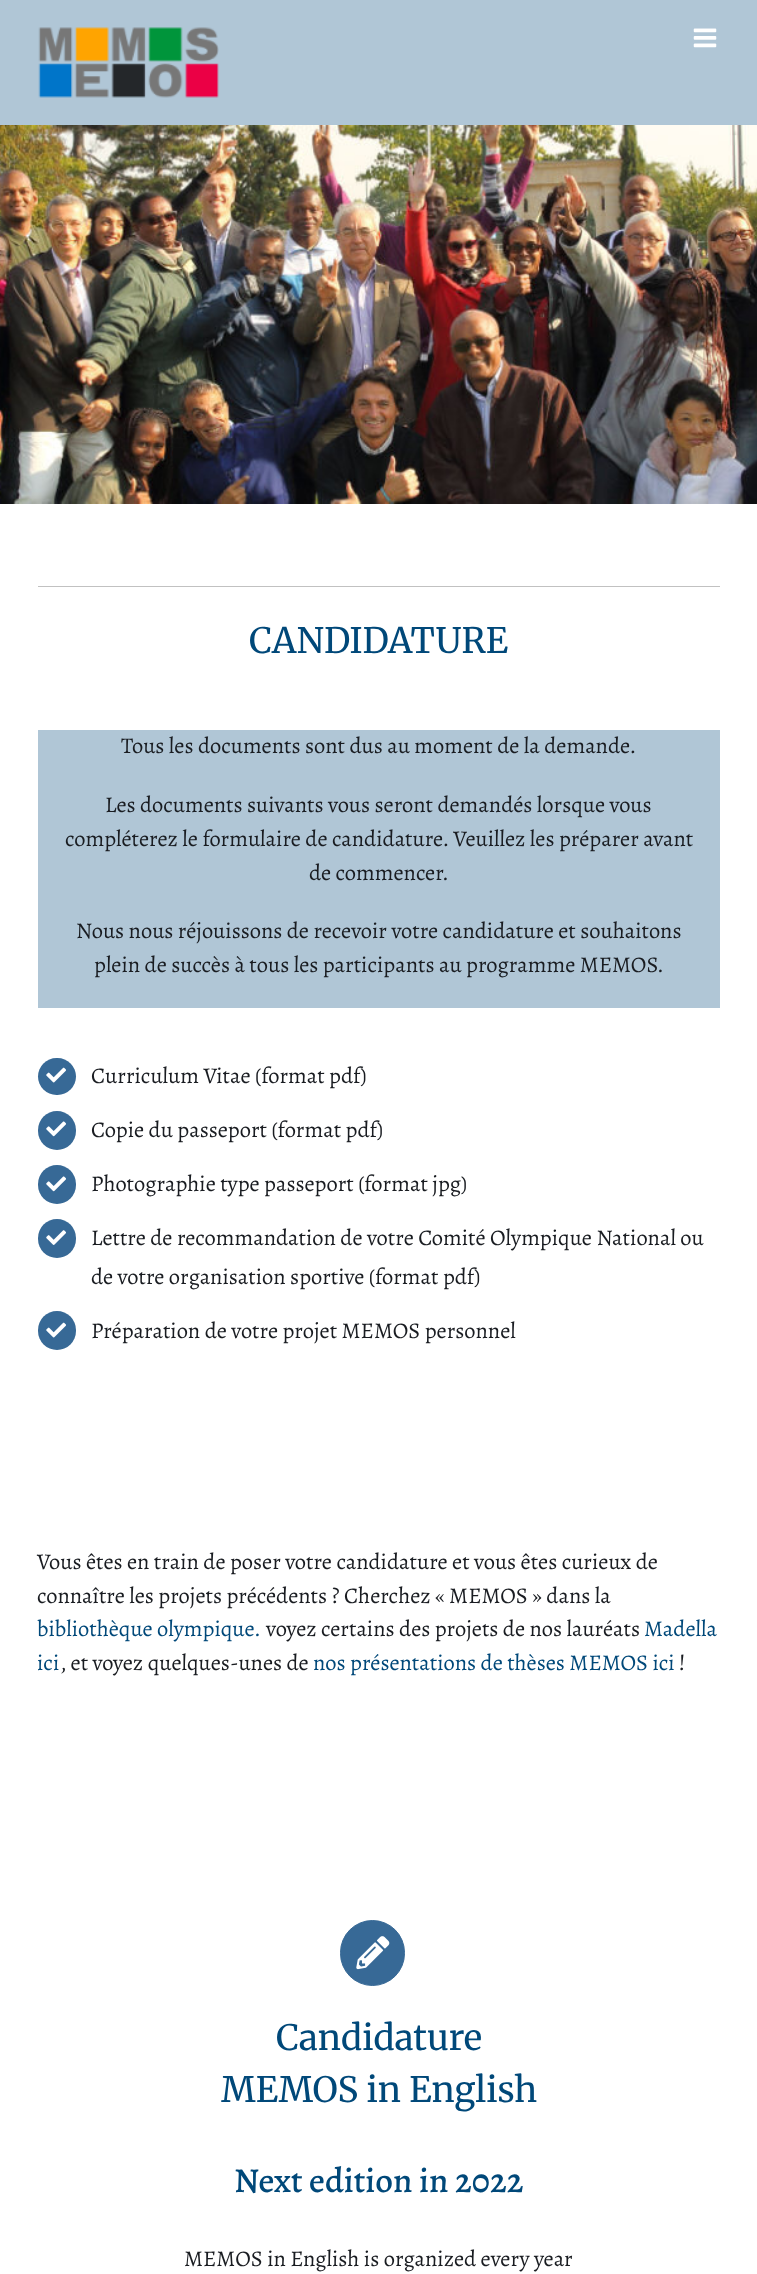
<!DOCTYPE html>
<meta charset="utf-8">
<style>body { margin: 0 } canvas { display: block }</style>
<canvas id="canvas" width="757" height="2274"></canvas>
<img id="img1" src="img_01.png" hidden>
<img id="img2" src="img_02.png" hidden>
<img id="img3" src="img_03.png" hidden>
<img id="img4" src="img_04.png" hidden>
<img id="img5" src="img_05.png" hidden>
<img id="img6" src="img_06.png" hidden>
<img id="img7" src="img_07.png" hidden>
<script>
window.onload = function () {
	const canvas = document.getElementById("canvas");
	const ctx = canvas.getContext("2d");
	ctx.miterLimit = 4;
	ctx.fontKerning = "normal";
	function txt(s, x, y) {
		ctx.fillText(s, x, y);
	}
	function fill(x, y, w, h) {
		ctx.fillRect(x, y, w, h);
	}
	function round(x, y, w, h, r) {
		ctx.beginPath();
		ctx.roundRect(x, y, w, h, r);
		ctx.fill();
	}
	function img(id, x, y, w, h) {
		ctx.drawImage(document.getElementById(id), x, y, w, h);
	}

	ctx.fillStyle = "#FFFFFF";
	fill(0, 0, 757, 2274);
	ctx.fillStyle = "#B0C6D6";
	fill(0, 0, 757, 125);
	img("img1", 38, 27, 181, 71);
	img("img2", 693, 28, 24, 20);
	img("img3", 0, 125, 757, 379);
	ctx.fillStyle = "#C1C1C1";
	fill(38, 586, 682, 1);
	ctx.fillStyle = "#B0C6D6";
	fill(38, 730, 682, 278);
	ctx.fillStyle = "#376996";
	round(38, 1058, 38, 37, 18.5);
	img("img4", 46, 1067, 20, 16);
	round(38, 1111, 38, 39, 19);
	img("img5", 46, 1121, 20, 16);
	round(38, 1165, 38, 39, 19);
	img("img5", 46, 1176, 20, 16);
	round(38, 1219, 38, 39, 19);
	img("img6", 46, 1230, 20, 15);
	round(38, 1311, 38, 39, 19);
	img("img4", 46, 1322, 20, 16);
	ctx.beginPath();
	ctx.roundRect(340.5, 1920.5, 64, 65, 32);
	ctx.fill();
	ctx.strokeStyle = "#376996";
	ctx.stroke();
	img("img7", 356, 1936, 34, 34);
	ctx.font = "35px Merriweather";
	ctx.fillStyle = "#004879";
	txt("CANDIDATURE", 249, 653);
	ctx.font = "22.5px Alegreya";
	ctx.fillStyle = "#191C21";
	txt("Tous les documents sont dus au moment de la demande.", 121, 753);
	txt("Les documents suivants vous seront demandés lorsque vous", 105, 812);
	txt("compléterez le formulaire de candidature. Veuillez les préparer avant", 65, 846);
	txt("de commencer.", 309, 880);
	txt("Nous nous réjouissons de recevoir votre candidature et souhaitons", 76, 938);
	txt("plein de succès à tous les participants au programme MEMOS.", 94, 972);
	txt("Curriculum Vitae (format pdf)", 91, 1083);
	txt("Copie du passeport (format pdf)", 91, 1137);
	txt("Photographie type passeport (format jpg)", 91, 1191);
	txt("Lettre de recommandation de votre Comité Olympique National ou", 91, 1245);
	txt("de votre organisation sportive (format pdf)", 91, 1284);
	txt("Préparation de votre projet MEMOS personnel", 91, 1338);
	txt("Vous êtes en train de poser votre candidature et vous êtes curieux de", 37, 1569);
	txt("connaître les projets précédents ? Cherchez « MEMOS » dans la", 37, 1603);
	ctx.fillStyle = "#004879";
	txt("bibliothèque olympique.", 37, 1636);
	ctx.fillStyle = "#191C21";
	txt("voyez certains des projets de nos lauréats", 266, 1636);
	ctx.fillStyle = "#004879";
	txt("Madella", 644, 1636);
	txt("ici", 37, 1670);
	ctx.fillStyle = "#191C21";
	txt(", et voyez quelques-unes de", 60, 1670);
	ctx.fillStyle = "#004879";
	txt("nos présentations de thèses MEMOS ici", 313, 1670);
	ctx.fillStyle = "#191C21";
	txt("!", 679, 1670);
	ctx.font = "35px Merriweather";
	ctx.fillStyle = "#004879";
	txt("Candidature", 276, 2050);
	txt("MEMOS in English", 221, 2102);
	ctx.font = "500 35px Alegreya";
	txt("Next edition in 2022", 234, 2192);
	ctx.font = "22.5px Alegreya";
	ctx.fillStyle = "#191C21";
	txt("MEMOS in English is organized every year", 184, 2266);
};
</script>
